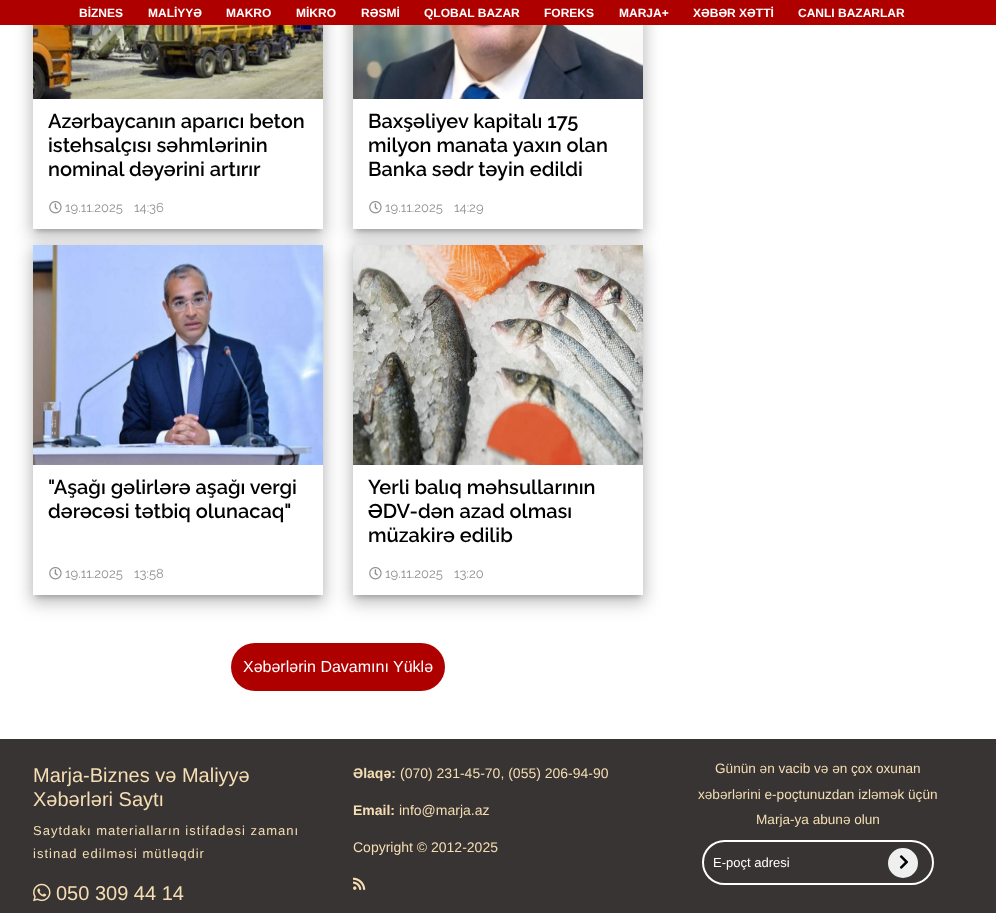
<!DOCTYPE html>
<meta charset="utf-8">
<style>body { margin: 0 } canvas { display: block }</style>
<canvas id="canvas" width="996" height="913"></canvas>
<img id="img1" src="img_01.png" hidden>
<img id="img2" src="img_02.png" hidden>
<img id="img3" src="img_03.png" hidden>
<img id="img4" src="img_04.png" hidden>
<img id="img5" src="img_05.png" hidden>
<img id="img6" src="img_06.png" hidden>
<img id="img7" src="img_07.png" hidden>
<img id="img8" src="img_08.png" hidden>
<script>
window.onload = function () {
	const canvas = document.getElementById("canvas");
	const ctx = canvas.getContext("2d");
	ctx.miterLimit = 4;
	ctx.fontKerning = "normal";
	function txt(s, x, y) {
		ctx.fillText(s, x, y);
	}
	function fill(x, y, w, h) {
		ctx.fillRect(x, y, w, h);
	}
	function round(x, y, w, h, r) {
		ctx.beginPath();
		ctx.roundRect(x, y, w, h, r);
		ctx.fill();
	}
	function img(id, x, y, w, h) {
		ctx.drawImage(document.getElementById(id), x, y, w, h);
	}

	ctx.fillStyle = "#FFFFFF";
	fill(0, 0, 996, 913);
	ctx.save();
	ctx.beginPath();
	ctx.rect(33, 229, 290, 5);
	ctx.clip();
	ctx.fillStyle = "rgba(0, 0, 0, 0.2)";
	ctx.filter = "blur(2.5px)";
	ctx.beginPath();
	ctx.rect(36, -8, 284, 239);
	ctx.fill();
	ctx.filter = "none";
	ctx.restore();
	ctx.save();
	ctx.beginPath();
	ctx.moveTo(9, 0);
	ctx.lineTo(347, 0);
	ctx.lineTo(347, 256);
	ctx.lineTo(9, 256);
	ctx.closePath();
	ctx.moveTo(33, -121);
	ctx.lineTo(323, -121);
	ctx.lineTo(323, 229);
	ctx.lineTo(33, 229);
	ctx.closePath();
	ctx.clip("evenodd");
	ctx.fillStyle = "rgba(0, 0, 0, 0.12)";
	ctx.filter = "blur(7px)";
	ctx.beginPath();
	ctx.rect(31, -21, 294, 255);
	ctx.fill();
	ctx.filter = "none";
	ctx.restore();
	ctx.save();
	ctx.beginPath();
	ctx.moveTo(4, 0);
	ctx.lineTo(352, 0);
	ctx.lineTo(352, 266);
	ctx.lineTo(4, 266);
	ctx.closePath();
	ctx.moveTo(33, -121);
	ctx.lineTo(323, -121);
	ctx.lineTo(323, 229);
	ctx.lineTo(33, 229);
	ctx.closePath();
	ctx.clip("evenodd");
	ctx.fillStyle = "rgba(0, 0, 0, 0.14)";
	ctx.filter = "blur(8.5px)";
	ctx.beginPath();
	ctx.rect(31, -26, 294, 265);
	ctx.fill();
	ctx.filter = "none";
	ctx.restore();
	ctx.save();
	ctx.beginPath();
	ctx.rect(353, 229, 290, 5);
	ctx.clip();
	ctx.fillStyle = "rgba(0, 0, 0, 0.2)";
	ctx.filter = "blur(2.5px)";
	ctx.beginPath();
	ctx.rect(356, -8, 284, 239);
	ctx.fill();
	ctx.filter = "none";
	ctx.restore();
	ctx.save();
	ctx.beginPath();
	ctx.moveTo(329, 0);
	ctx.lineTo(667, 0);
	ctx.lineTo(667, 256);
	ctx.lineTo(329, 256);
	ctx.closePath();
	ctx.moveTo(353, -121);
	ctx.lineTo(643, -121);
	ctx.lineTo(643, 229);
	ctx.lineTo(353, 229);
	ctx.closePath();
	ctx.clip("evenodd");
	ctx.fillStyle = "rgba(0, 0, 0, 0.12)";
	ctx.filter = "blur(7px)";
	ctx.beginPath();
	ctx.rect(351, -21, 294, 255);
	ctx.fill();
	ctx.filter = "none";
	ctx.restore();
	ctx.save();
	ctx.beginPath();
	ctx.moveTo(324, 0);
	ctx.lineTo(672, 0);
	ctx.lineTo(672, 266);
	ctx.lineTo(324, 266);
	ctx.closePath();
	ctx.moveTo(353, -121);
	ctx.lineTo(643, -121);
	ctx.lineTo(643, 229);
	ctx.lineTo(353, 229);
	ctx.closePath();
	ctx.clip("evenodd");
	ctx.fillStyle = "rgba(0, 0, 0, 0.14)";
	ctx.filter = "blur(8.5px)";
	ctx.beginPath();
	ctx.rect(351, -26, 294, 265);
	ctx.fill();
	ctx.filter = "none";
	ctx.restore();
	ctx.fillStyle = "#AF0000";
	fill(0, 0, 996, 25);
	img("img1", 33, 25, 290, 74);
	img("img2", 49, 201, 13, 13);
	img("img3", 353, 25, 290, 74);
	img("img2", 369, 201, 13, 13);
	ctx.fillStyle = "rgba(0, 0, 0, 0.2)";
	ctx.filter = "blur(2.5px)";
	ctx.beginPath();
	ctx.rect(36, 253, 284, 344);
	ctx.fill();
	ctx.filter = "none";
	ctx.fillStyle = "rgba(0, 0, 0, 0.12)";
	ctx.filter = "blur(7px)";
	ctx.beginPath();
	ctx.rect(31, 246, 294, 354);
	ctx.fill();
	ctx.filter = "none";
	ctx.fillStyle = "rgba(0, 0, 0, 0.14)";
	ctx.filter = "blur(8.5px)";
	ctx.beginPath();
	ctx.rect(31, 251, 294, 354);
	ctx.fill();
	ctx.filter = "none";
	ctx.fillStyle = "#FFFFFF";
	fill(33, 465, 290, 130);
	img("img4", 33, 245, 290, 220);
	img("img2", 49, 567, 13, 13);
	ctx.fillStyle = "rgba(0, 0, 0, 0.2)";
	ctx.filter = "blur(2.5px)";
	ctx.beginPath();
	ctx.rect(356, 253, 284, 344);
	ctx.fill();
	ctx.filter = "none";
	ctx.fillStyle = "rgba(0, 0, 0, 0.12)";
	ctx.filter = "blur(7px)";
	ctx.beginPath();
	ctx.rect(351, 246, 294, 354);
	ctx.fill();
	ctx.filter = "none";
	ctx.fillStyle = "rgba(0, 0, 0, 0.14)";
	ctx.filter = "blur(8.5px)";
	ctx.beginPath();
	ctx.rect(351, 251, 294, 354);
	ctx.fill();
	ctx.filter = "none";
	ctx.fillStyle = "#FFFFFF";
	fill(353, 465, 290, 130);
	img("img5", 353, 245, 290, 220);
	img("img2", 369, 567, 13, 13);
	ctx.fillStyle = "#AF0000";
	round(231, 643, 214, 48, 24);
	ctx.fillStyle = "#383434";
	fill(0, 739, 996, 174);
	img("img6", 33, 883, 18, 19);
	img("img7", 353, 877, 13, 13);
	ctx.beginPath();
	ctx.roundRect(703, 841, 230, 43, 21.5);
	ctx.strokeStyle = "#FFFFFF";
	ctx.lineWidth = 2;
	ctx.stroke();
	ctx.fillStyle = "#EFEFEF";
	ctx.beginPath();
	ctx.arc(903, 863, 15, 0, Math.PI * 2);
	ctx.fill();
	img("img8", 899, 855, 10, 14);
	ctx.font = "bold 12px Liberation Sans";
	ctx.fillStyle = "#FFFFFF";
	txt("BİZNES", 79, 17);
	txt("MALİYYƏ", 148, 17);
	txt("MAKRO", 226, 17);
	txt("MİKRO", 296, 17);
	txt("RƏSMİ", 361, 17);
	txt("QLOBAL BAZAR", 424, 17);
	txt("FOREKS", 544, 17);
	txt("MARJA+", 619, 17);
	txt("XƏBƏR XƏTTİ", 693, 17);
	txt("CANLI BAZARLAR", 798, 17);
	ctx.font = "600 20px Raleway";
	ctx.fillStyle = "#000000";
	txt("Azərbaycanın aparıcı beton", 48, 128);
	txt("istehsalçısı səhmlərinin", 48, 152);
	txt("nominal dəyərini artırır", 48, 176);
	ctx.font = "13px Raleway";
	ctx.fillStyle = "#919090";
	txt("19.11.2025", 65, 212);
	txt("14:36", 134, 212);
	ctx.font = "600 20px Raleway";
	ctx.fillStyle = "#000000";
	txt("Baxşəliyev kapitalı 175", 368, 128);
	txt("milyon manata yaxın olan", 368, 152);
	txt("Banka sədr təyin edildi", 368, 176);
	ctx.font = "13px Raleway";
	ctx.fillStyle = "#919090";
	txt("19.11.2025", 385, 212);
	txt("14:29", 454, 212);
	ctx.font = "600 20px Raleway";
	ctx.fillStyle = "#000000";
	txt("\"Aşağı gəlirlərə aşağı vergi", 48, 494);
	txt("dərəcəsi tətbiq olunacaq\"", 48, 518);
	ctx.font = "13px Raleway";
	ctx.fillStyle = "#919090";
	txt("19.11.2025", 65, 578);
	txt("13:58", 134, 578);
	ctx.font = "600 20px Raleway";
	ctx.fillStyle = "#000000";
	txt("Yerli balıq məhsullarının", 368, 494);
	txt("ƏDV-dən azad olması", 368, 518);
	txt("müzakirə edilib", 368, 542);
	ctx.font = "13px Raleway";
	ctx.fillStyle = "#919090";
	txt("19.11.2025", 385, 578);
	txt("13:20", 454, 578);
	ctx.font = "16px Liberation Sans";
	ctx.fillStyle = "#FFFFFF";
	txt("Xəbərlərin Davamını Yüklə", 243, 672);
	ctx.font = "20px Liberation Sans";
	ctx.fillStyle = "#F5DEB3";
	txt("Marja-Biznes və Maliyyə", 33, 782);
	txt("Xəbərləri Saytı", 33, 806);
	ctx.letterSpacing = "1px";
	ctx.font = "13px Liberation Sans";
	txt("Saytdakı materialların istifadəsi zamanı", 33, 835);
	txt("istinad edilməsi mütləqdir", 33, 858);
	ctx.letterSpacing = "0px";
	ctx.font = "20px Liberation Sans";
	txt("050 309 44 14", 56, 900);
	ctx.font = "bold 14px Liberation Sans";
	txt("Əlaqə:", 353, 778);
	ctx.font = "14px Liberation Sans";
	txt("(070) 231-45-70, (055) 206-94-90", 400, 778);
	ctx.font = "bold 14px Liberation Sans";
	txt("Email:", 353, 815);
	ctx.font = "14px Liberation Sans";
	txt("info@marja.az", 399, 815);
	txt("Copyright © 2012-2025", 353, 852);
	ctx.font = "13.6px Liberation Sans";
	txt("Günün ən vacib və ən çox oxunan", 715, 773);
	txt("xəbərlərini e-poçtunuzdan izləmək üçün", 698, 799);
	txt("Marja-ya abunə olun", 756, 824);
	ctx.font = "13px Liberation Sans";
	ctx.fillStyle = "#FFFFFF";
	txt("E-poçt adresi", 713, 867);
};
</script>
